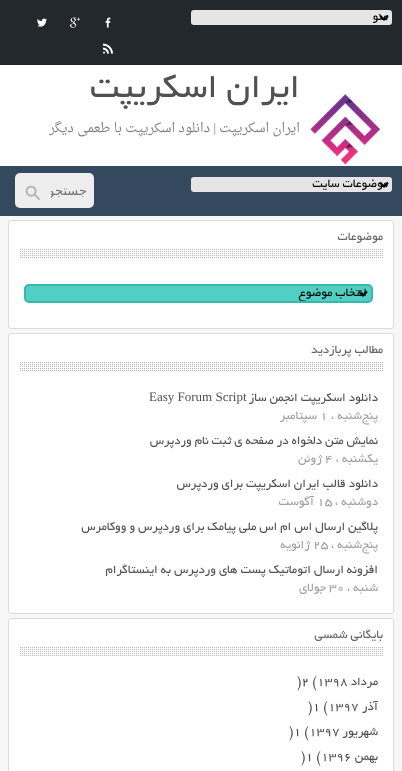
<!DOCTYPE html>
<meta charset="utf-8">
<style>body { margin: 0 } canvas { display: block }</style>
<canvas id="canvas" width="402" height="771"></canvas>
<img id="img1" src="img_01.png" hidden>
<img id="img2" src="img_02.png" hidden>
<img id="img3" src="img_03.png" hidden>
<img id="img4" src="img_04.png" hidden>
<img id="img5" src="img_05.png" hidden>
<img id="img6" src="img_06.png" hidden>
<img id="img7" src="img_07.png" hidden>
<script>
window.onload = function () {
	const canvas = document.getElementById("canvas");
	const ctx = canvas.getContext("2d");
	ctx.miterLimit = 4;
	ctx.fontKerning = "normal";
	function txt(s, x, y) {
		ctx.fillText(s, x, y);
	}
	function fill(x, y, w, h) {
		ctx.fillRect(x, y, w, h);
	}
	function round(x, y, w, h, r) {
		ctx.beginPath();
		ctx.roundRect(x, y, w, h, r);
		ctx.fill();
	}
	function img(id, x, y, w, h) {
		ctx.drawImage(document.getElementById(id), x, y, w, h);
	}

	ctx.fillStyle = "#F7F7F7";
	fill(0, 0, 402, 771);
	ctx.fillStyle = "#FFFFFF";
	fill(0, 65, 402, 101);
	ctx.fillStyle = "#23282D";
	fill(0, 0, 402, 65);
	ctx.fillStyle = "#E5E5E5";
	round(191, 10, 201, 15, 3);
	ctx.beginPath();
	ctx.moveTo(380, 15.5);
	ctx.lineTo(384, 19.5);
	ctx.lineTo(388, 15.5);
	ctx.strokeStyle = "#000000";
	ctx.lineWidth = 2;
	ctx.stroke();
	img("img1", 105, 17, 6, 11);
	img("img2", 70, 17, 10, 11);
	img("img3", 37, 18, 10, 9);
	img("img4", 103, 43, 10, 11);
	img("img5", 310, 94, 71, 71);
	ctx.fillStyle = "#34495E";
	fill(0, 166, 402, 50);
	ctx.fillStyle = "#E5E5E5";
	round(191, 177, 201, 15, 3);
	ctx.beginPath();
	ctx.moveTo(380, 182.5);
	ctx.lineTo(384, 186.5);
	ctx.lineTo(388, 182.5);
	ctx.stroke();
	ctx.fillStyle = "#EEEEEE";
	round(15, 173, 79, 35, 5);
	img("img6", 25, 185, 15, 15);
	ctx.fillStyle = "#FFFFFF";
	ctx.beginPath();
	ctx.roundRect(8.5, 220.5, 385, 108, 2.5);
	ctx.fill();
	ctx.strokeStyle = "#DBDBDB";
	ctx.lineWidth = 1;
	ctx.stroke();
	img("img7", 20, 249, 363, 9);
	ctx.fillStyle = "#50CFC2";
	ctx.beginPath();
	ctx.roundRect(25, 285, 347, 17, 4);
	ctx.fill();
	ctx.strokeStyle = "#39B7AC";
	ctx.lineWidth = 2;
	ctx.stroke();
	ctx.beginPath();
	ctx.moveTo(359, 291.5);
	ctx.lineTo(363, 295.5);
	ctx.lineTo(367, 291.5);
	ctx.strokeStyle = "#000000";
	ctx.stroke();
	ctx.fillStyle = "#FFFFFF";
	ctx.beginPath();
	ctx.roundRect(8.5, 333.5, 385, 280, 2.5);
	ctx.fill();
	ctx.strokeStyle = "#DBDBDB";
	ctx.lineWidth = 1;
	ctx.stroke();
	img("img7", 20, 362, 363, 9);
	ctx.beginPath();
	ctx.roundRect(8.5, 618.5, 385, 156, 2.5);
	ctx.fill();
	ctx.stroke();
	img("img7", 20, 647, 363, 9);
	ctx.direction = "rtl";
	ctx.font = "13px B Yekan";
	ctx.fillStyle = "#000000";
	txt("منو", 388, 20);
	ctx.font = "37px B Yekan";
	ctx.fillStyle = "#515151";
	txt("ایران اسکریپت", 300, 97);
	ctx.font = "13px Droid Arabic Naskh";
	ctx.fillStyle = "#828282";
	txt("ایران اسکریپت", 300, 132);
	ctx.font = "13px Liberation Serif";
	txt("|", 216, 132);
	ctx.font = "13px Droid Arabic Naskh";
	txt("دانلود اسکریپت با طعمی دیگر", 210, 132);
	ctx.font = "13px B Yekan";
	ctx.fillStyle = "#000000";
	txt("موضوعات سایت", 388, 187);
	ctx.save();
	ctx.beginPath();
	ctx.rect(51, 183, 36, 16);
	ctx.clip();
	ctx.font = "13px DejaVu Sans";
	ctx.fillStyle = "#757575";
	txt("جستجو", 87, 195);
	ctx.restore();
	ctx.fillStyle = "#666666";
	txt("موضوعات", 383, 240);
	ctx.save();
	ctx.beginPath();
	ctx.rect(42, 286, 325, 15);
	ctx.clip();
	ctx.fillStyle = "#000000";
	txt("انتخاب موضوع", 367, 296);
	ctx.restore();
	txt("مطالب پربازدید", 383, 353);
	ctx.fillStyle = "#515151";
	txt("دانلود اسکریپت انجمن ساز", 378, 401);
	ctx.direction = "ltr";
	ctx.font = "13px Liberation Serif";
	txt("Easy Forum Script", 149, 401);
	ctx.direction = "rtl";
	ctx.font = "13px B Yekan";
	ctx.fillStyle = "#A0A0A0";
	txt("پنج‌شنبه ،", 378, 419);
	ctx.direction = "ltr";
	txt("1", 320, 419);
	ctx.direction = "rtl";
	txt("سپتامبر", 317, 419);
	ctx.fillStyle = "#515151";
	txt("نمایش متن دلخواه در صفحه ی ثبت نام وردپرس", 378, 444);
	ctx.fillStyle = "#A0A0A0";
	txt("یکشنبه ،", 378, 462);
	ctx.direction = "ltr";
	txt("4", 325, 462);
	ctx.direction = "rtl";
	txt("ژوئن", 322, 462);
	ctx.fillStyle = "#515151";
	txt("دانلود قالب ایران اسکریپت برای وردپرس", 378, 487);
	ctx.fillStyle = "#A0A0A0";
	txt("دوشنبه ،", 378, 505);
	ctx.direction = "ltr";
	txt("15", 317, 505);
	ctx.direction = "rtl";
	txt("آگوست", 314, 505);
	ctx.fillStyle = "#515151";
	txt("پلاگین ارسال اس ام اس ملی پیامک برای وردپرس و ووکامرس", 378, 530);
	ctx.fillStyle = "#A0A0A0";
	txt("پنج‌شنبه ،", 378, 548);
	ctx.direction = "ltr";
	txt("25", 313, 548);
	ctx.direction = "rtl";
	txt("ژانویه", 310, 548);
	ctx.fillStyle = "#515151";
	txt("افزونه ارسال اتوماتیک پست های وردپرس به اینستاگرام", 378, 573);
	ctx.fillStyle = "#A0A0A0";
	txt("شنبه ،", 378, 591);
	ctx.direction = "ltr";
	txt("30", 329, 591);
	ctx.direction = "rtl";
	txt("جولای", 326, 591);
	ctx.fillStyle = "#666666";
	txt("بایگانی شمسی", 383, 638);
	ctx.fillStyle = "#515151";
	txt("مرداد", 378, 685);
	ctx.direction = "ltr";
	txt("۱۳۹۸", 317, 685);
	ctx.fillStyle = "#444444";
	txt(")۲ (", 297, 685);
	ctx.direction = "rtl";
	ctx.fillStyle = "#515151";
	txt("آذر", 378, 710);
	ctx.direction = "ltr";
	txt("۱۳۹۷", 328, 710);
	ctx.fillStyle = "#444444";
	txt(")۱ (", 308, 710);
	ctx.direction = "rtl";
	ctx.fillStyle = "#515151";
	txt("شهریور", 378, 735);
	ctx.direction = "ltr";
	txt("۱۳۹۷", 309, 735);
	ctx.fillStyle = "#444444";
	txt(")۱ (", 289, 735);
	ctx.direction = "rtl";
	ctx.fillStyle = "#515151";
	txt("بهمن", 378, 760);
	ctx.direction = "ltr";
	txt("۱۳۹۶", 321, 760);
	ctx.fillStyle = "#444444";
	txt(")۱ (", 301, 760);
};
</script>
